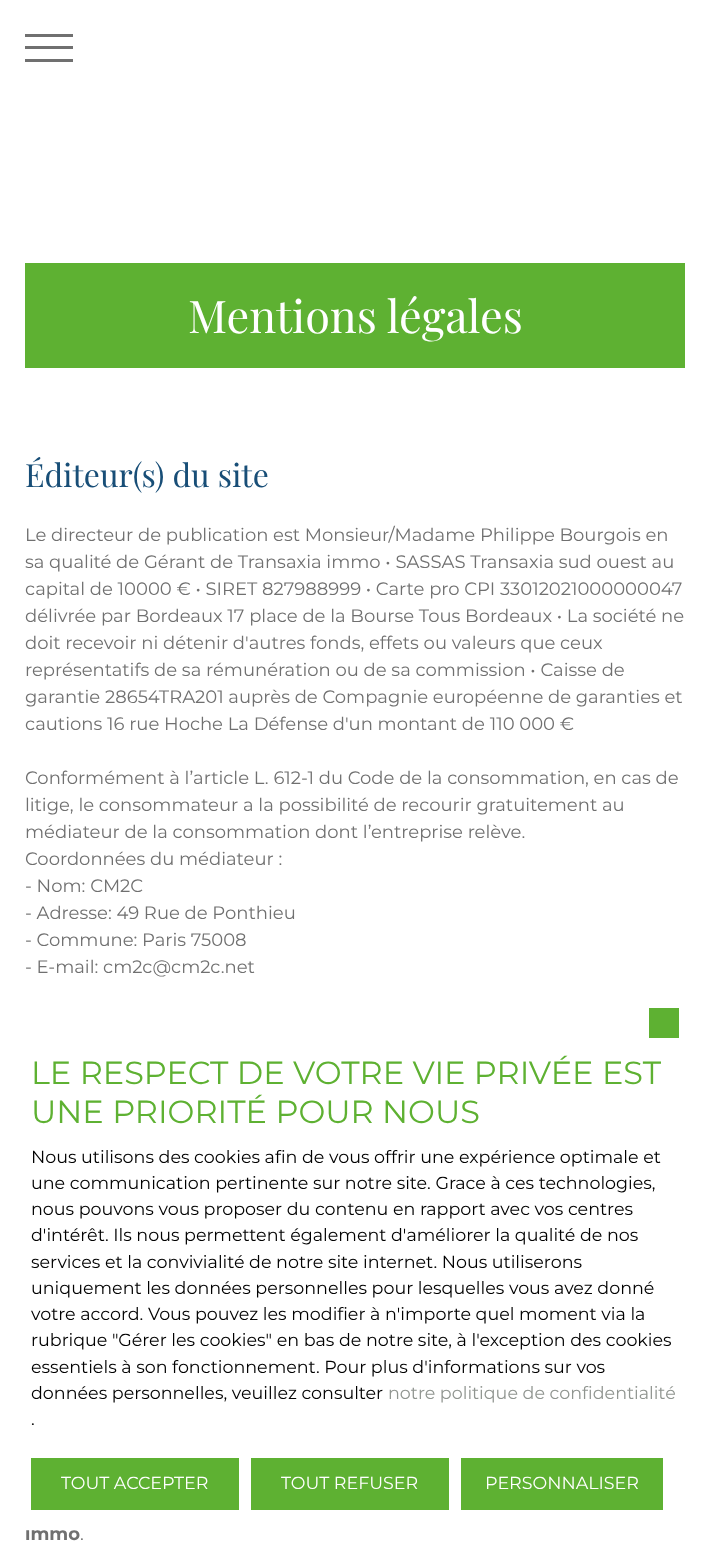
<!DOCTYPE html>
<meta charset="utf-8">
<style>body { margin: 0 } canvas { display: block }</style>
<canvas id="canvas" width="710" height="1541"></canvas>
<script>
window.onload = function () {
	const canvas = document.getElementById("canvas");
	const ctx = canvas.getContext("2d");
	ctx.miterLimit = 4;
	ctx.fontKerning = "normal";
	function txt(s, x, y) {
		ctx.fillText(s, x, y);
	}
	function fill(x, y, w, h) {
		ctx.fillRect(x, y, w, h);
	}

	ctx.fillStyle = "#FFFFFF";
	fill(0, 0, 710, 1541);
	ctx.fillStyle = "#707070";
	fill(25, 34, 48, 3);
	fill(25, 46, 48, 3);
	fill(25, 59, 48, 3);
	ctx.fillStyle = "#5EB132";
	fill(25, 263, 660, 105);
	fill(649, 1008, 30, 30);
	fill(31, 1458, 208, 52);
	fill(251, 1458, 198, 52);
	fill(461, 1458, 202, 52);
	ctx.font = "45px Playfair Display";
	ctx.fillStyle = "#FFFFFF";
	txt("Mentions légales", 188, 333);
	ctx.font = "32px Playfair Display";
	ctx.fillStyle = "#184E77";
	txt("Éditeur(s) du site", 25, 487);
	ctx.font = "18px Montserrat";
	ctx.fillStyle = "#707070";
	txt("Le directeur de publication est Monsieur/Madame Philippe Bourgois en", 25, 541);
	txt("sa qualité de Gérant de Transaxia immo • SASSAS Transaxia sud ouest au", 25, 568);
	txt("capital de 10000 € • SIRET 827988999 • Carte pro CPI 33012021000000047", 25, 595);
	txt("délivrée par Bordeaux 17 place de la Bourse Tous Bordeaux • La société ne", 25, 622);
	txt("doit recevoir ni détenir d'autres fonds, effets ou valeurs que ceux", 25, 649);
	txt("représentatifs de sa rémunération ou de sa commission • Caisse de", 25, 676);
	txt("garantie 28654TRA201 auprès de Compagnie européenne de garanties et", 25, 703);
	txt("cautions 16 rue Hoche La Défense d'un montant de 110 000 €", 25, 730);
	txt("Conformément à l’article L. 612-1 du Code de la consommation, en cas de", 25, 784);
	txt("litige, le consommateur a la possibilité de recourir gratuitement au", 25, 811);
	txt("médiateur de la consommation dont l’entreprise relève.", 25, 838);
	txt("Coordonnées du médiateur :", 25, 865);
	txt("- Nom: CM2C", 25, 892);
	txt("- Adresse: 49 Rue de Ponthieu", 25, 919);
	txt("- Commune: Paris 75008", 25, 946);
	txt("- E-mail: cm2c@cm2c.net", 25, 973);
	ctx.font = "bold 18px Montserrat";
	txt("immo", 25, 1540);
	ctx.font = "18px Montserrat";
	txt(".", 80, 1540);
	ctx.fillStyle = "#FFFFFF";
	fill(26, 1525, 4, 4);
	ctx.font = "32px Montserrat";
	ctx.fillStyle = "#5EB132";
	txt("LE RESPECT DE VOTRE VIE PRIVÉE EST", 31, 1084);
	txt("UNE PRIORITÉ POUR NOUS", 31, 1123);
	ctx.font = "17.5px Montserrat";
	ctx.fillStyle = "#000000";
	txt("Nous utilisons des cookies afin de vous offrir une expérience optimale et", 31, 1163);
	txt("une communication pertinente sur notre site. Grace à ces technologies,", 31, 1189);
	txt("nous pouvons vous proposer du contenu en rapport avec vos centres", 31, 1215);
	txt("d'intérêt. Ils nous permettent également d'améliorer la qualité de nos", 31, 1241);
	txt("services et la convivialité de notre site internet. Nous utiliserons", 31, 1268);
	txt("uniquement les données personnelles pour lesquelles vous avez donné", 31, 1294);
	txt("votre accord. Vous pouvez les modifier à n'importe quel moment via la", 31, 1320);
	txt("rubrique ″Gérer les cookies″ en bas de notre site, à l'exception des cookies", 31, 1346);
	txt("essentiels à son fonctionnement. Pour plus d'informations sur vos", 31, 1373);
	txt("données personnelles, veuillez consulter", 31, 1399);
	ctx.fillStyle = "#909590";
	txt("notre politique de confidentialité", 388, 1399);
	ctx.fillStyle = "#000000";
	txt(".", 31, 1425);
	ctx.fillStyle = "#FFFFFF";
	txt("TOUT ACCEPTER", 61, 1489);
	txt("TOUT REFUSER", 281, 1489);
	txt("PERSONNALISER", 485, 1489);
};
</script>
